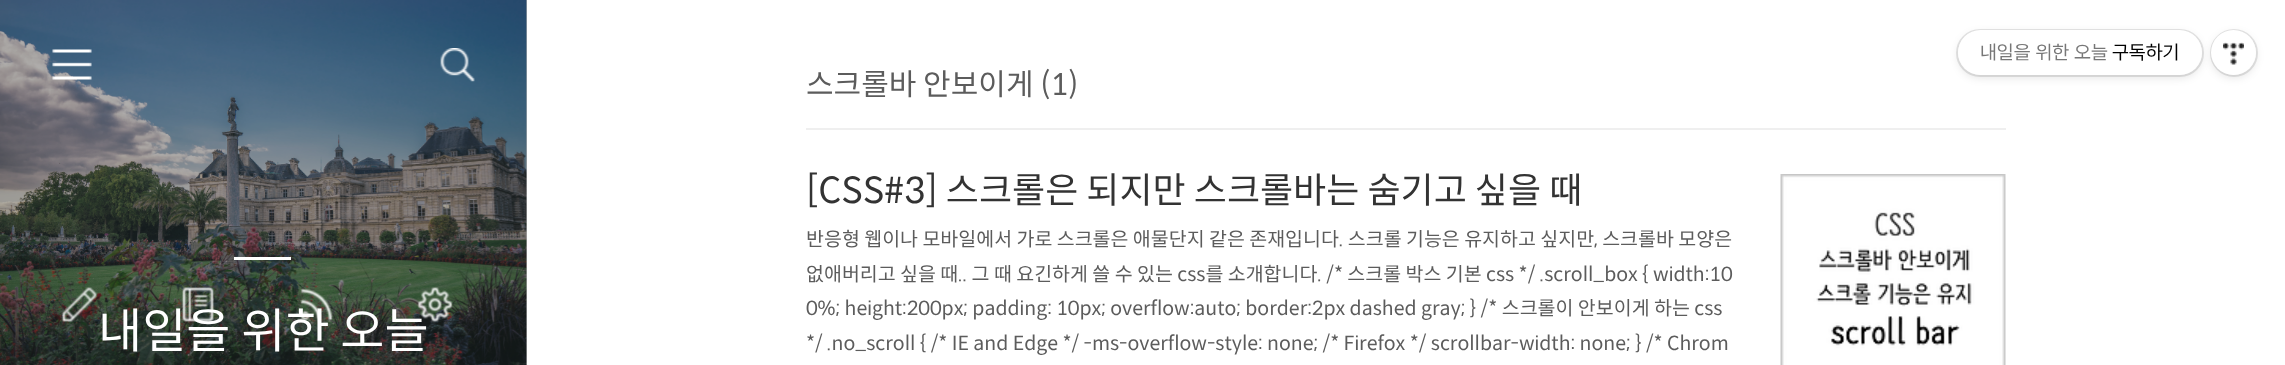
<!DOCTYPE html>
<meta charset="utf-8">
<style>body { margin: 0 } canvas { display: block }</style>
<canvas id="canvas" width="2285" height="365"></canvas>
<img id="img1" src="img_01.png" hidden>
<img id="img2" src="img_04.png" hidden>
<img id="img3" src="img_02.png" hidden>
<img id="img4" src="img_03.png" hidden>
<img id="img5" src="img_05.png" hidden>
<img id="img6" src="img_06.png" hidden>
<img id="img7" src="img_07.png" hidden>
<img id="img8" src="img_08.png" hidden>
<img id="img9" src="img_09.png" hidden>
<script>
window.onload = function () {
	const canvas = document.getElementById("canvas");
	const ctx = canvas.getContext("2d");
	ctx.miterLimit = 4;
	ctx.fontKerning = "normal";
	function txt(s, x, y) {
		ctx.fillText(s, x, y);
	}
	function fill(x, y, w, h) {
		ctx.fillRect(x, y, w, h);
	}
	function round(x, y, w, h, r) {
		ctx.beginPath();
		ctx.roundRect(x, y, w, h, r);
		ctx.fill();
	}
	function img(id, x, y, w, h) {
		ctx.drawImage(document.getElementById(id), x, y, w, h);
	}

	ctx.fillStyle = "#FFFFFF";
	fill(0, 0, 2285, 365);
	ctx.fillStyle = "#B2B2B2";
	fill(526, 0, 1, 365);
	ctx.fillStyle = "rgba(0, 0, 0, 0.1)";
	ctx.filter = "blur(4px)";
	ctx.beginPath();
	ctx.roundRect(2211, 33, 45, 45, 22.5);
	ctx.fill();
	ctx.filter = "none";
	ctx.beginPath();
	ctx.arc(2234, 53, 23, 0, Math.PI * 2);
	ctx.strokeStyle = "rgba(0, 0, 0, 0.1)";
	ctx.lineWidth = 2;
	ctx.stroke();
	ctx.fillStyle = "#FFFFFF";
	ctx.beginPath();
	ctx.arc(2233.5, 52.5, 22.5, 0, Math.PI * 2);
	ctx.fill();
	ctx.fillStyle = "rgba(0, 0, 0, 0.1)";
	ctx.filter = "blur(4px)";
	ctx.beginPath();
	ctx.roundRect(1958, 33, 244, 45, 22.5);
	ctx.fill();
	ctx.filter = "none";
	ctx.beginPath();
	ctx.roundRect(1957, 30, 246, 46, 23);
	ctx.stroke();
	ctx.fillStyle = "#FFFFFF";
	round(1958, 30, 244, 45, 22.5);
	img("img1", 2223, 42, 21, 23);
	img("img2", 0, 0, 527, 365);
	img("img3", 52, 49, 40, 31);
	img("img4", 440, 48, 35, 34);
	fill(234, 257, 57, 3);
	img("img5", 62, 287, 35, 35);
	img("img6", 182, 287, 32, 35);
	img("img7", 300, 288, 33, 33);
	img("img8", 417, 287, 36, 35);
	ctx.fillStyle = "#EFEFEF";
	fill(806, 128, 1200, 2);
	img("img9", 1780, 174, 226, 191);
	ctx.font = "19.5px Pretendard";
	ctx.fillStyle = "#777777";
	txt("내일을 위한 오늘", 1980, 59);
	ctx.fillStyle = "#000000";
	txt("구독하기", 2112, 59);
	ctx.font = "48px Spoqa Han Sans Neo";
	ctx.fillStyle = "#FFFFFF";
	txt("내일을 위한 오늘", 98, 348);
	ctx.font = "30px Spoqa Han Sans Neo";
	ctx.fillStyle = "#5C5C5C";
	txt("스크롤바 안보이게 (1)", 806, 95);
	ctx.font = "36px Spoqa Han Sans Neo";
	ctx.fillStyle = "#333333";
	txt("[CSS#3] 스크롤은 되지만 스크롤바는 숨기고 싶을 때", 806, 203);
	ctx.font = "19.5px Spoqa Han Sans Neo";
	ctx.fillStyle = "#5C5C5C";
	txt("반응형 웹이나 모바일에서 가로 스크롤은 애물단지 같은 존재입니다. 스크롤 기능은 유지하고 싶지만, 스크롤바 모양은", 806, 246);
	txt("없애버리고 싶을 때.. 그 때 요긴하게 쓸 수 있는 css를 소개합니다. /* 스크롤 박스 기본 css */ .scroll_box { width:10", 806, 281);
	txt("0%; height:200px; padding: 10px; overflow:auto; border:2px dashed gray; } /* 스크롤이 안보이게 하는 css", 806, 315);
	txt("*/ .no_scroll { /* IE and Edge */ -ms-overflow-style: none; /* Firefox */ scrollbar-width: none; } /* Chrom", 806, 350);
};
</script>
